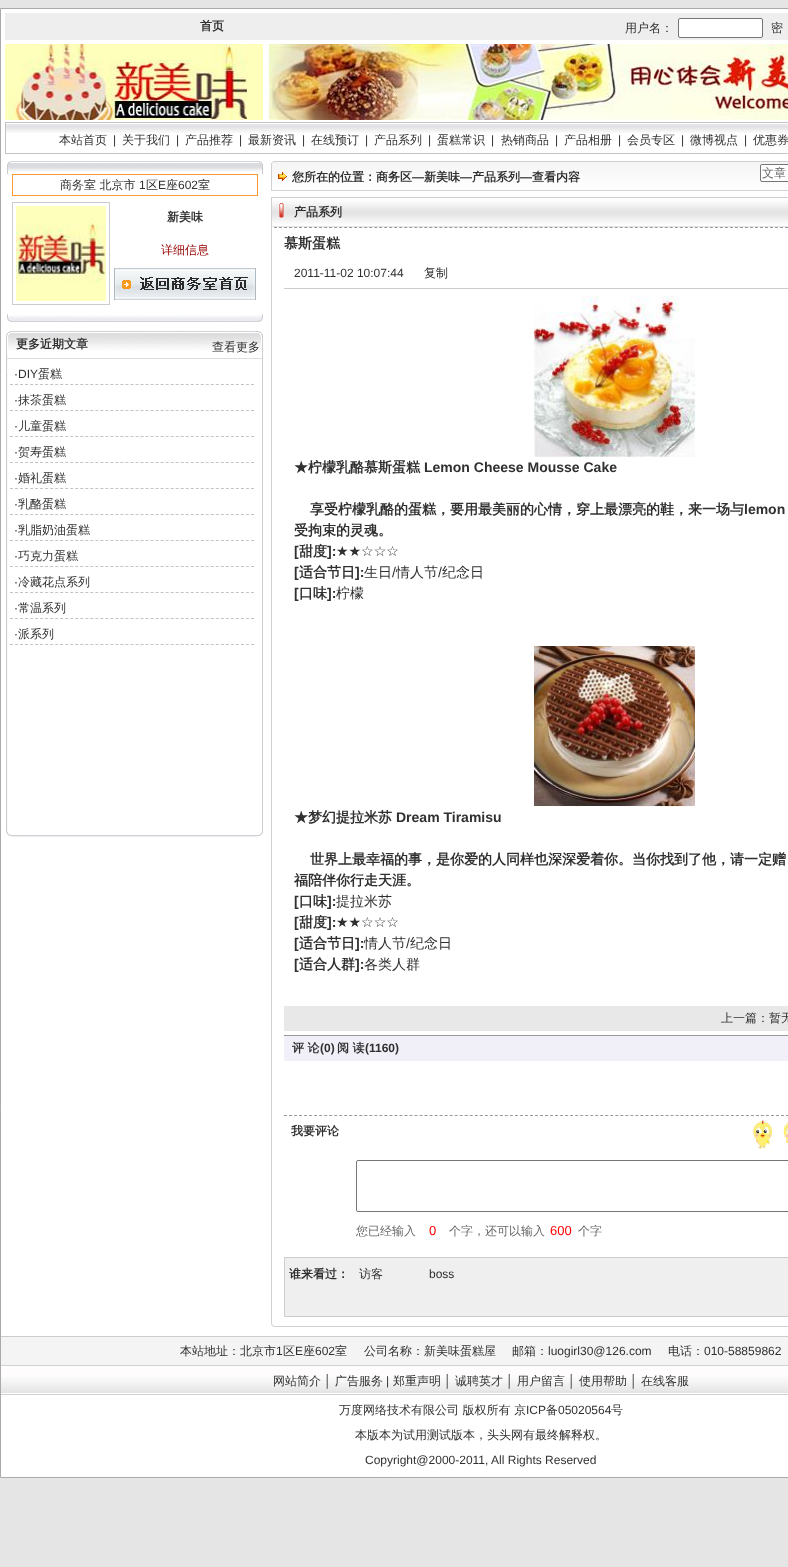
<!DOCTYPE html>
<meta charset="utf-8">
<style>body { margin: 0 } canvas { display: block }</style>
<canvas id="canvas" width="788" height="1567"></canvas>
<img id="img1" src="img_01.png" hidden>
<img id="img2" src="img_02.png" hidden>
<img id="img3" src="img_03.png" hidden>
<img id="img4" src="img_04.png" hidden>
<img id="img5" src="img_05.png" hidden>
<img id="img6" src="img_06.png" hidden>
<img id="img7" src="img_07.png" hidden>
<img id="img8" src="img_08.png" hidden>
<img id="img9" src="img_09.png" hidden>
<img id="img10" src="img_10.png" hidden>
<img id="img11" src="img_11.png" hidden>
<img id="img12" src="img_12.png" hidden>
<img id="img13" src="img_13.png" hidden>
<img id="img14" src="img_14.png" hidden>
<img id="img15" src="img_15.png" hidden>
<img id="img16" src="img_16.png" hidden>
<img id="img17" src="img_17.png" hidden>
<img id="img18" src="img_18.png" hidden>
<img id="img19" src="img_19.png" hidden>
<img id="img20" src="img_20.png" hidden>
<script>
window.onload = function () {
	const canvas = document.getElementById("canvas");
	const ctx = canvas.getContext("2d");
	ctx.miterLimit = 4;
	ctx.fontKerning = "normal";
	function txt(s, x, y) {
		ctx.fillText(s, x, y);
	}
	function fill(x, y, w, h) {
		ctx.fillRect(x, y, w, h);
	}
	function img(id, x, y, w, h) {
		ctx.drawImage(document.getElementById(id), x, y, w, h);
	}

	ctx.fillStyle = "#E5E5E5";
	fill(0, 0, 788, 1567);
	ctx.fillStyle = "#FFFFFF";
	ctx.beginPath();
	ctx.rect(0.5, 8.5, 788, 1469);
	ctx.fill();
	ctx.strokeStyle = "#AAAAAA";
	ctx.stroke();
	ctx.fillStyle = "#EFEEEE";
	fill(5, 13, 783, 27);
	ctx.fillStyle = "#FFFFFF";
	ctx.beginPath();
	ctx.roundRect(678.5, 18.5, 84, 19, 1.5);
	ctx.fill();
	ctx.strokeStyle = "#767676";
	ctx.stroke();
	img("img1", 5, 44, 258, 76);
	img("img2", 269, 44, 519, 76);
	img("img3", 6, 124, 782, 9);
	ctx.strokeStyle = "#C8C3C3";
	ctx.strokeRect(5.5, 122.5, 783, 31);
	img("img4", 7, 161, 256, 13);
	ctx.strokeStyle = "#FF9934";
	ctx.strokeRect(12.5, 174.5, 245, 21);
	ctx.strokeStyle = "#CCCCCC";
	ctx.strokeRect(12.5, 202.5, 97, 102);
	img("img5", 16, 206, 90, 95);
	img("img6", 114, 268, 142, 32);
	img("img7", 7, 314, 256, 8);
	img("img8", 6, 331, 257, 28);
	img("img9", 6, 359, 257, 470);
	ctx.beginPath();
	ctx.moveTo(10, 384.5);
	ctx.lineTo(254, 384.5);
	ctx.strokeStyle = "#C8C3C3";
	ctx.setLineDash([3, 2.02]);
	ctx.stroke();
	ctx.beginPath();
	ctx.moveTo(10, 410.5);
	ctx.lineTo(254, 410.5);
	ctx.stroke();
	ctx.beginPath();
	ctx.moveTo(10, 436.5);
	ctx.lineTo(254, 436.5);
	ctx.stroke();
	ctx.beginPath();
	ctx.moveTo(10, 462.5);
	ctx.lineTo(254, 462.5);
	ctx.stroke();
	ctx.beginPath();
	ctx.moveTo(10, 488.5);
	ctx.lineTo(254, 488.5);
	ctx.stroke();
	ctx.beginPath();
	ctx.moveTo(10, 514.5);
	ctx.lineTo(254, 514.5);
	ctx.stroke();
	ctx.beginPath();
	ctx.moveTo(10, 540.5);
	ctx.lineTo(254, 540.5);
	ctx.stroke();
	ctx.beginPath();
	ctx.moveTo(10, 566.5);
	ctx.lineTo(254, 566.5);
	ctx.stroke();
	ctx.beginPath();
	ctx.moveTo(10, 592.5);
	ctx.lineTo(254, 592.5);
	ctx.stroke();
	ctx.beginPath();
	ctx.moveTo(10, 618.5);
	ctx.lineTo(254, 618.5);
	ctx.stroke();
	ctx.beginPath();
	ctx.moveTo(10, 644.5);
	ctx.lineTo(254, 644.5);
	ctx.stroke();
	img("img10", 6, 829, 257, 8);
	img("img11", 271, 161, 517, 30);
	img("img12", 271, 161, 16, 29);
	ctx.beginPath();
	ctx.roundRect(760.5, 164.5, 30, 17, 1.5);
	ctx.fill();
	ctx.strokeStyle = "#767676";
	ctx.setLineDash([]);
	ctx.stroke();
	img("img13", 271, 197, 517, 30);
	img("img14", 279, 203, 5, 15);
	ctx.fillStyle = "#D1D0D6";
	fill(271, 227, 1, 1090);
	ctx.beginPath();
	ctx.moveTo(274, 227.5);
	ctx.lineTo(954, 227.5);
	ctx.strokeStyle = "#999999";
	ctx.setLineDash([3, 2.01]);
	ctx.stroke();
	ctx.fillStyle = "#CCCCCC";
	fill(284, 288, 504, 1);
	img("img15", 534, 296, 161, 161);
	img("img16", 534, 646, 161, 161);
	ctx.fillStyle = "#E8E8E8";
	fill(284, 1006, 504, 25);
	ctx.fillStyle = "#F1EFF8";
	fill(284, 1036, 504, 25);
	ctx.fillStyle = "#999999";
	fill(284, 1035, 504, 1);
	ctx.beginPath();
	ctx.moveTo(284, 1115.5);
	ctx.lineTo(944, 1115.5);
	ctx.setLineDash([3, 2.02]);
	ctx.stroke();
	img("img17", 752, 1119, 20, 30);
	img("img18", 782, 1123, 6, 22);
	ctx.beginPath();
	ctx.roundRect(356.5, 1160.5, 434, 51, 1.5);
	ctx.strokeStyle = "#767676";
	ctx.setLineDash([]);
	ctx.stroke();
	ctx.fillStyle = "#EFEFEF";
	ctx.beginPath();
	ctx.rect(284.5, 1257.5, 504, 59);
	ctx.fill();
	ctx.strokeStyle = "#CCCCCC";
	ctx.stroke();
	img("img19", 271, 1317, 517, 10);
	ctx.fillStyle = "#CCCCCC";
	fill(1, 1336, 787, 1);
	ctx.fillStyle = "#F5F4F4";
	fill(1, 1337, 787, 28);
	img("img20", 1, 1365, 787, 30);
	ctx.font = "bold 12px WenQuanYi Zen Hei";
	ctx.fillStyle = "#303030";
	txt("首页", 200, 30);
	ctx.font = "500 12px WenQuanYi Zen Hei";
	txt("用户名：", 625, 32);
	txt("密", 771, 32);
	txt("本站首页", 59, 144);
	ctx.font = "12px Liberation Sans";
	txt("|", 113, 144);
	ctx.font = "500 12px WenQuanYi Zen Hei";
	txt("关于我们", 122, 144);
	ctx.font = "12px Liberation Sans";
	txt("|", 176, 144);
	ctx.font = "500 12px WenQuanYi Zen Hei";
	txt("产品推荐", 185, 144);
	ctx.font = "12px Liberation Sans";
	txt("|", 239, 144);
	ctx.font = "500 12px WenQuanYi Zen Hei";
	txt("最新资讯", 248, 144);
	ctx.font = "12px Liberation Sans";
	txt("|", 302, 144);
	ctx.font = "500 12px WenQuanYi Zen Hei";
	txt("在线预订", 311, 144);
	ctx.font = "12px Liberation Sans";
	txt("|", 365, 144);
	ctx.font = "500 12px WenQuanYi Zen Hei";
	txt("产品系列", 374, 144);
	ctx.font = "12px Liberation Sans";
	txt("|", 428, 144);
	ctx.font = "500 12px WenQuanYi Zen Hei";
	txt("蛋糕常识", 437, 144);
	ctx.font = "12px Liberation Sans";
	txt("|", 491, 144);
	ctx.font = "500 12px WenQuanYi Zen Hei";
	txt("热销商品", 501, 144);
	ctx.font = "12px Liberation Sans";
	txt("|", 555, 144);
	ctx.font = "500 12px WenQuanYi Zen Hei";
	txt("产品相册", 564, 144);
	ctx.font = "12px Liberation Sans";
	txt("|", 618, 144);
	ctx.font = "500 12px WenQuanYi Zen Hei";
	txt("会员专区", 627, 144);
	ctx.font = "12px Liberation Sans";
	txt("|", 681, 144);
	ctx.font = "500 12px WenQuanYi Zen Hei";
	txt("微博视点", 690, 144);
	ctx.font = "12px Liberation Sans";
	txt("|", 744, 144);
	ctx.font = "500 12px WenQuanYi Zen Hei";
	txt("优惠券", 753, 144);
	txt("商务室 北京市", 60, 189);
	ctx.font = "12px Liberation Sans";
	txt("1", 139, 189);
	ctx.font = "500 12px WenQuanYi Zen Hei";
	txt("区", 146, 189);
	ctx.font = "12px Liberation Sans";
	txt("E", 158, 189);
	ctx.font = "500 12px WenQuanYi Zen Hei";
	txt("座", 166, 189);
	ctx.font = "12px Liberation Sans";
	txt("602", 178, 189);
	ctx.font = "500 12px WenQuanYi Zen Hei";
	txt("室", 198, 189);
	ctx.font = "bold 12px WenQuanYi Zen Hei";
	txt("新美味", 167, 221);
	ctx.font = "500 12px WenQuanYi Zen Hei";
	ctx.fillStyle = "#990000";
	txt("详细信息", 161, 254);
	ctx.font = "bold 12px WenQuanYi Zen Hei";
	ctx.fillStyle = "#303030";
	txt("更多近期文章", 16, 348);
	ctx.font = "500 12px WenQuanYi Zen Hei";
	txt("查看更多", 212, 351);
	ctx.font = "12px Liberation Sans";
	txt("·DIY", 14, 378);
	ctx.font = "500 12px WenQuanYi Zen Hei";
	txt("蛋糕", 38, 378);
	ctx.font = "12px Liberation Sans";
	txt("·", 14, 404);
	ctx.font = "500 12px WenQuanYi Zen Hei";
	txt("抹茶蛋糕", 18, 404);
	ctx.font = "12px Liberation Sans";
	txt("·", 14, 430);
	ctx.font = "500 12px WenQuanYi Zen Hei";
	txt("儿童蛋糕", 18, 430);
	ctx.font = "12px Liberation Sans";
	txt("·", 14, 456);
	ctx.font = "500 12px WenQuanYi Zen Hei";
	txt("贺寿蛋糕", 18, 456);
	ctx.font = "12px Liberation Sans";
	txt("·", 14, 482);
	ctx.font = "500 12px WenQuanYi Zen Hei";
	txt("婚礼蛋糕", 18, 482);
	ctx.font = "12px Liberation Sans";
	txt("·", 14, 508);
	ctx.font = "500 12px WenQuanYi Zen Hei";
	txt("乳酪蛋糕", 18, 508);
	ctx.font = "12px Liberation Sans";
	txt("·", 14, 534);
	ctx.font = "500 12px WenQuanYi Zen Hei";
	txt("乳脂奶油蛋糕", 18, 534);
	ctx.font = "12px Liberation Sans";
	txt("·", 14, 560);
	ctx.font = "500 12px WenQuanYi Zen Hei";
	txt("巧克力蛋糕", 18, 560);
	ctx.font = "12px Liberation Sans";
	txt("·", 14, 586);
	ctx.font = "500 12px WenQuanYi Zen Hei";
	txt("冷藏花点系列", 18, 586);
	ctx.font = "12px Liberation Sans";
	txt("·", 14, 612);
	ctx.font = "500 12px WenQuanYi Zen Hei";
	txt("常温系列", 18, 612);
	ctx.font = "12px Liberation Sans";
	txt("·", 14, 638);
	ctx.font = "500 12px WenQuanYi Zen Hei";
	txt("派系列", 18, 638);
	ctx.font = "bold 12px WenQuanYi Zen Hei";
	txt("您所在的位置：商务区", 292, 181);
	ctx.font = "bold 12px Liberation Sans";
	txt("—", 412, 181);
	ctx.font = "bold 12px WenQuanYi Zen Hei";
	txt("新美味", 424, 181);
	ctx.font = "bold 12px Liberation Sans";
	txt("—", 460, 181);
	ctx.font = "bold 12px WenQuanYi Zen Hei";
	txt("产品系列", 472, 181);
	ctx.font = "bold 12px Liberation Sans";
	txt("—", 520, 181);
	ctx.font = "bold 12px WenQuanYi Zen Hei";
	txt("查看内容", 532, 181);
	ctx.font = "500 12px WenQuanYi Zen Hei";
	ctx.fillStyle = "#666666";
	txt("文章", 762, 177);
	ctx.font = "bold 12px WenQuanYi Zen Hei";
	ctx.fillStyle = "#303030";
	txt("产品系列", 294, 216);
	ctx.font = "bold 14px WenQuanYi Zen Hei";
	txt("慕斯蛋糕", 284, 248);
	ctx.font = "12px Liberation Sans";
	txt("2011-11-02 10:07:44", 294, 277);
	ctx.font = "500 12px WenQuanYi Zen Hei";
	txt("复制", 424, 277);
	ctx.font = "bold 14px WenQuanYi Zen Hei";
	txt("★柠檬乳酪慕斯蛋糕", 294, 472);
	ctx.font = "bold 14px Liberation Sans";
	txt("Lemon Cheese Mousse Cake", 424, 472);
	ctx.font = "bold 14px WenQuanYi Zen Hei";
	txt("享受柠檬乳酪的蛋糕，要用最美丽的心情，穿上最漂亮的鞋，来一场与", 310, 514);
	ctx.font = "bold 14px Liberation Sans";
	txt("lemon", 744, 514);
	ctx.font = "bold 14px WenQuanYi Zen Hei";
	txt("受拘束的灵魂。", 294, 535);
	ctx.font = "bold 14px Liberation Sans";
	txt("[", 294, 556);
	ctx.font = "bold 14px WenQuanYi Zen Hei";
	txt("甜度", 299, 556);
	ctx.font = "bold 14px Liberation Sans";
	txt("]:", 327, 556);
	ctx.font = "14px DejaVu Sans";
	txt("★★☆☆☆", 336, 556);
	ctx.font = "bold 14px Liberation Sans";
	txt("[", 294, 577);
	ctx.font = "bold 14px WenQuanYi Zen Hei";
	txt("适合节日", 299, 577);
	ctx.font = "bold 14px Liberation Sans";
	txt("]:", 355, 577);
	ctx.font = "500 14px WenQuanYi Zen Hei";
	txt("生日", 364, 577);
	ctx.font = "14px Liberation Sans";
	txt("/", 392, 577);
	ctx.font = "500 14px WenQuanYi Zen Hei";
	txt("情人节", 396, 577);
	ctx.font = "14px Liberation Sans";
	txt("/", 438, 577);
	ctx.font = "500 14px WenQuanYi Zen Hei";
	txt("纪念日", 442, 577);
	ctx.font = "bold 14px Liberation Sans";
	txt("[", 294, 598);
	ctx.font = "bold 14px WenQuanYi Zen Hei";
	txt("口味", 299, 598);
	ctx.font = "bold 14px Liberation Sans";
	txt("]:", 327, 598);
	ctx.font = "500 14px WenQuanYi Zen Hei";
	txt("柠檬", 336, 598);
	ctx.font = "bold 14px WenQuanYi Zen Hei";
	txt("★梦幻提拉米苏", 294, 822);
	ctx.font = "bold 14px Liberation Sans";
	txt("Dream Tiramisu", 396, 822);
	ctx.font = "bold 14px WenQuanYi Zen Hei";
	txt("世界上最幸福的事，是你爱的人同样也深深爱着你。当你找到了他，请一定赠", 310, 864);
	txt("福陪伴你行走天涯。", 294, 885);
	ctx.font = "bold 14px Liberation Sans";
	txt("[", 294, 906);
	ctx.font = "bold 14px WenQuanYi Zen Hei";
	txt("口味", 299, 906);
	ctx.font = "bold 14px Liberation Sans";
	txt("]:", 327, 906);
	ctx.font = "500 14px WenQuanYi Zen Hei";
	txt("提拉米苏", 336, 906);
	ctx.font = "bold 14px Liberation Sans";
	txt("[", 294, 927);
	ctx.font = "bold 14px WenQuanYi Zen Hei";
	txt("甜度", 299, 927);
	ctx.font = "bold 14px Liberation Sans";
	txt("]:", 327, 927);
	ctx.font = "14px DejaVu Sans";
	txt("★★☆☆☆", 336, 927);
	ctx.font = "bold 14px Liberation Sans";
	txt("[", 294, 948);
	ctx.font = "bold 14px WenQuanYi Zen Hei";
	txt("适合节日", 299, 948);
	ctx.font = "bold 14px Liberation Sans";
	txt("]:", 355, 948);
	ctx.font = "500 14px WenQuanYi Zen Hei";
	txt("情人节", 364, 948);
	ctx.font = "14px Liberation Sans";
	txt("/", 406, 948);
	ctx.font = "500 14px WenQuanYi Zen Hei";
	txt("纪念日", 410, 948);
	ctx.font = "bold 14px Liberation Sans";
	txt("[", 294, 969);
	ctx.font = "bold 14px WenQuanYi Zen Hei";
	txt("适合人群", 299, 969);
	ctx.font = "bold 14px Liberation Sans";
	txt("]:", 355, 969);
	ctx.font = "500 14px WenQuanYi Zen Hei";
	txt("各类人群", 364, 969);
	ctx.font = "500 12px WenQuanYi Zen Hei";
	txt("上一篇：暂无", 721, 1022);
	ctx.font = "bold 12px WenQuanYi Zen Hei";
	txt("评 论", 292, 1052);
	ctx.font = "bold 12px Liberation Sans";
	txt("(0)", 320, 1052);
	ctx.font = "bold 12px WenQuanYi Zen Hei";
	txt("阅 读", 337, 1052);
	ctx.font = "bold 12px Liberation Sans";
	txt("(1160)", 365, 1052);
	ctx.font = "bold 12px WenQuanYi Zen Hei";
	txt("我要评论", 291, 1135);
	ctx.font = "500 12px WenQuanYi Zen Hei";
	ctx.fillStyle = "#666666";
	txt("您已经输入", 356, 1235);
	ctx.font = "13px Liberation Sans";
	ctx.fillStyle = "#FF0000";
	txt("0", 429, 1235);
	ctx.font = "500 12px WenQuanYi Zen Hei";
	ctx.fillStyle = "#666666";
	txt("个字，还可以输入", 449, 1235);
	ctx.font = "13px Liberation Sans";
	ctx.fillStyle = "#FF0000";
	txt("600", 550, 1235);
	ctx.font = "500 12px WenQuanYi Zen Hei";
	ctx.fillStyle = "#666666";
	txt("个字", 578, 1235);
	ctx.font = "bold 12px WenQuanYi Zen Hei";
	ctx.fillStyle = "#303030";
	txt("谁来看过：", 289, 1278);
	ctx.font = "500 12px WenQuanYi Zen Hei";
	txt("访客", 359, 1278);
	ctx.font = "12px Liberation Sans";
	txt("boss", 429, 1278);
	ctx.font = "500 12px WenQuanYi Zen Hei";
	txt("本站地址：北京市", 180, 1355);
	ctx.font = "12px Liberation Sans";
	txt("1", 276, 1355);
	ctx.font = "500 12px WenQuanYi Zen Hei";
	txt("区", 283, 1355);
	ctx.font = "12px Liberation Sans";
	txt("E", 295, 1355);
	ctx.font = "500 12px WenQuanYi Zen Hei";
	txt("座", 303, 1355);
	ctx.font = "12px Liberation Sans";
	txt("602", 315, 1355);
	ctx.font = "500 12px WenQuanYi Zen Hei";
	txt("室", 335, 1355);
	txt("公司名称：新美味蛋糕屋", 364, 1355);
	txt("邮箱：", 512, 1355);
	ctx.font = "12px Liberation Sans";
	txt("luogirl30@126.com", 548, 1355);
	ctx.font = "500 12px WenQuanYi Zen Hei";
	txt("电话：", 668, 1355);
	ctx.font = "12px Liberation Sans";
	txt("010-58859862", 704, 1355);
	ctx.font = "500 12px WenQuanYi Zen Hei";
	txt("网站简介", 273, 1385);
	ctx.font = "12px Liberation Sans";
	txt("│", 324, 1385);
	ctx.font = "500 12px WenQuanYi Zen Hei";
	txt("广告服务", 335, 1385);
	ctx.font = "12px Liberation Sans";
	txt("|", 386, 1385);
	ctx.font = "500 12px WenQuanYi Zen Hei";
	txt("郑重声明", 393, 1385);
	ctx.font = "12px Liberation Sans";
	txt("│", 444, 1385);
	ctx.font = "500 12px WenQuanYi Zen Hei";
	txt("诚聘英才", 455, 1385);
	ctx.font = "12px Liberation Sans";
	txt("│", 506, 1385);
	ctx.font = "500 12px WenQuanYi Zen Hei";
	txt("用户留言", 517, 1385);
	ctx.font = "12px Liberation Sans";
	txt("│", 568, 1385);
	ctx.font = "500 12px WenQuanYi Zen Hei";
	txt("使用帮助", 579, 1385);
	ctx.font = "12px Liberation Sans";
	txt("│", 630, 1385);
	ctx.font = "500 12px WenQuanYi Zen Hei";
	txt("在线客服", 641, 1385);
	txt("万度网络技术有限公司 版权所有 京", 339, 1414);
	ctx.font = "12px Liberation Sans";
	txt("ICP", 526, 1414);
	ctx.font = "500 12px WenQuanYi Zen Hei";
	txt("备", 546, 1414);
	ctx.font = "12px Liberation Sans";
	txt("05020564", 558, 1414);
	ctx.font = "500 12px WenQuanYi Zen Hei";
	txt("号", 611, 1414);
	txt("本版本为试用测试版本，头头网有最终解释权。", 355, 1439);
	ctx.font = "12px Liberation Sans";
	txt("Copyright@2000-2011, All Rights Reserved", 365, 1464);
};
</script>
